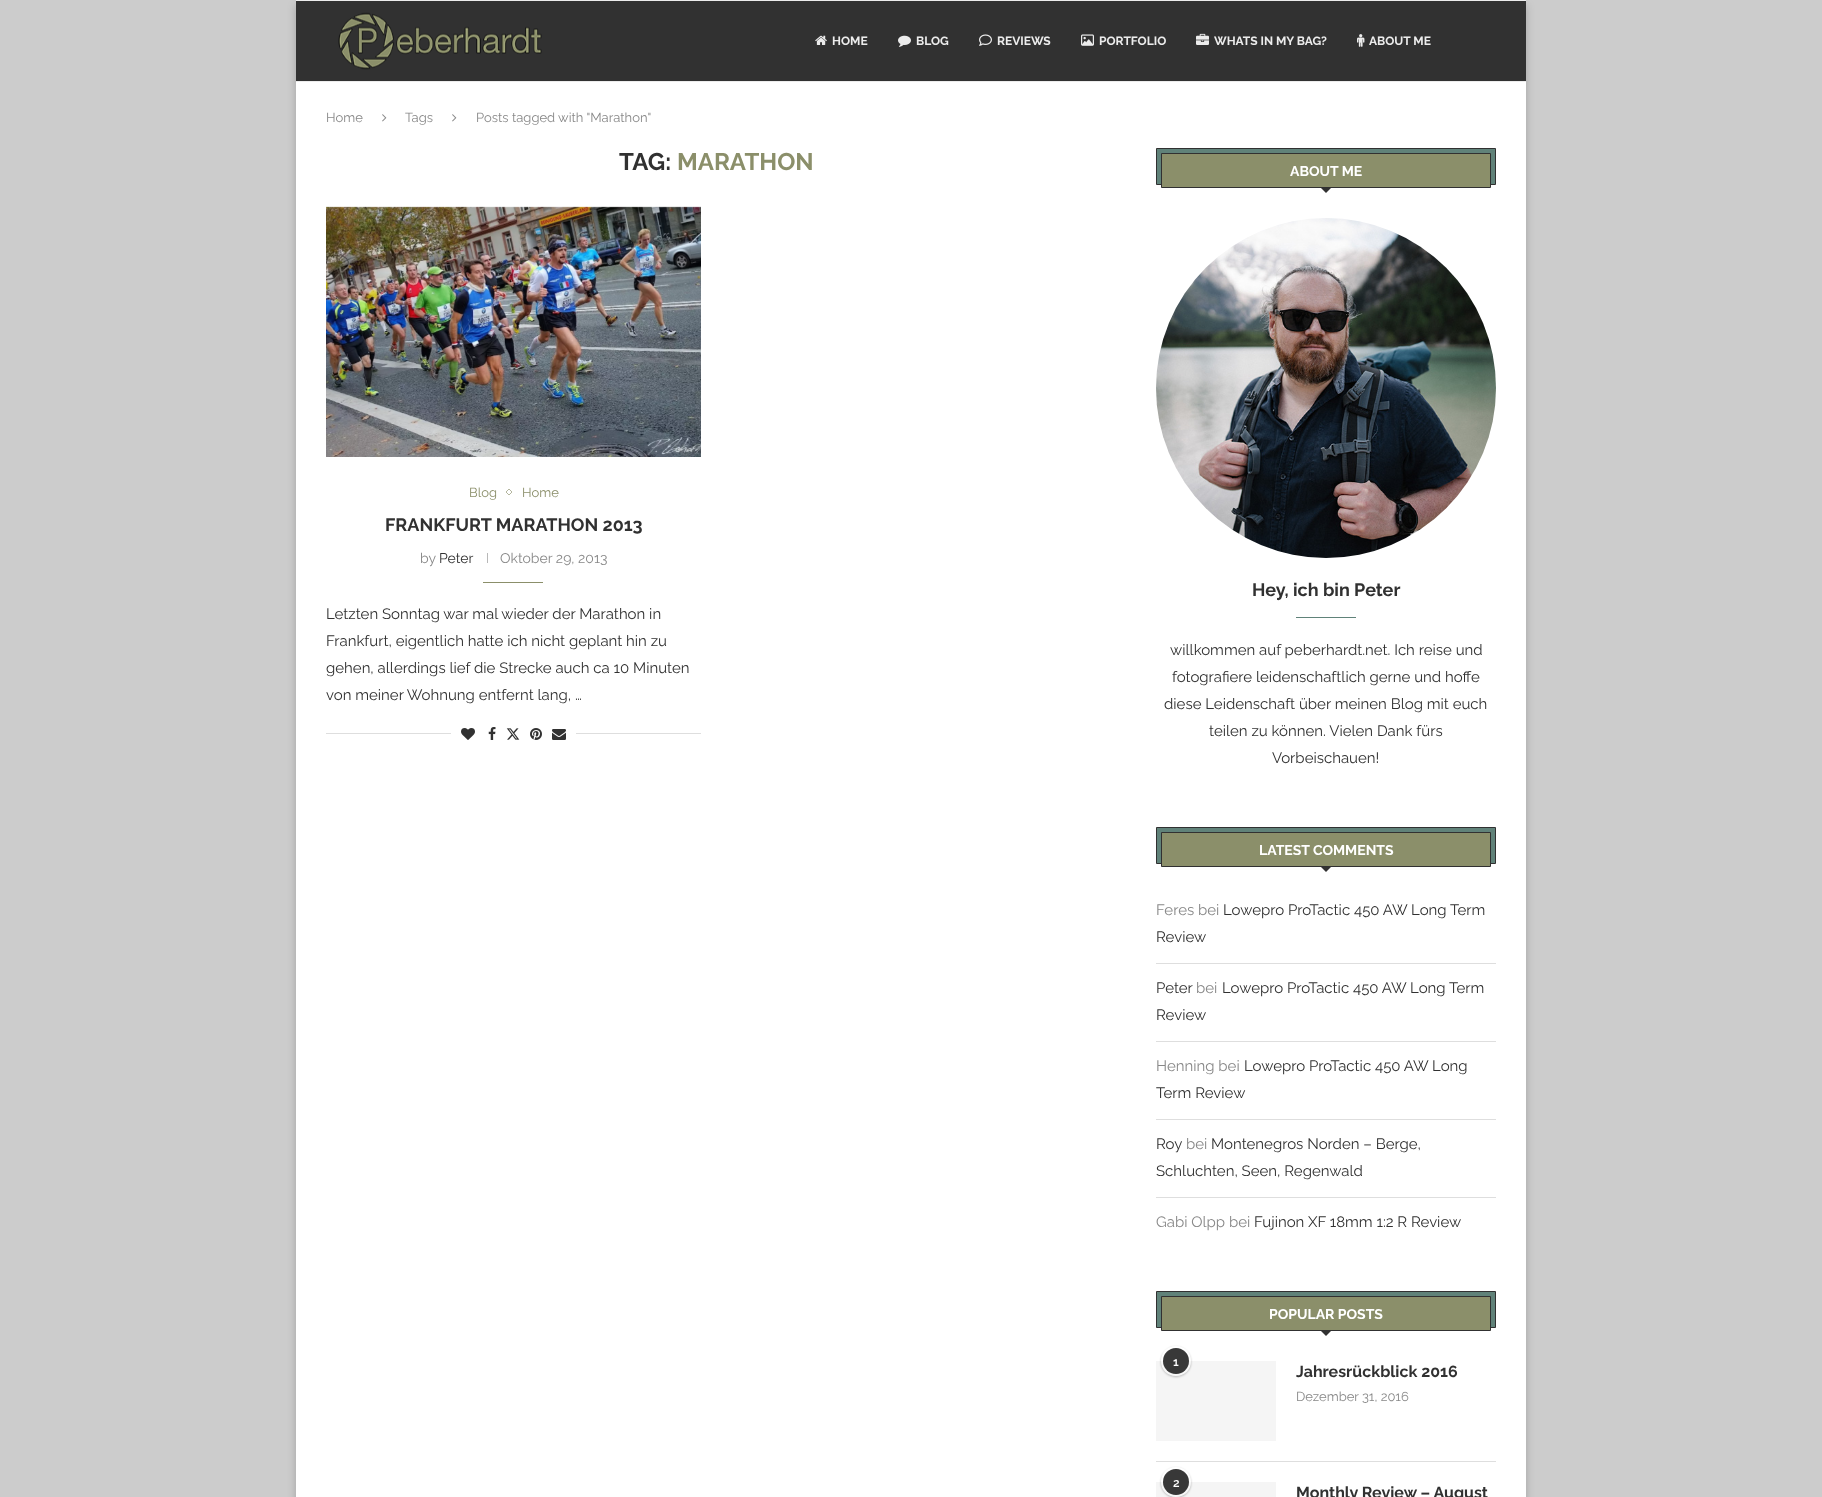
<!DOCTYPE html>
<meta charset="utf-8">
<style>body { margin: 0 } canvas { display: block }</style>
<canvas id="canvas" width="1822" height="1497"></canvas>
<img id="img1" src="img_01.png" hidden>
<img id="img2" src="img_02.png" hidden>
<img id="img3" src="img_03.png" hidden>
<img id="img4" src="img_04.png" hidden>
<img id="img5" src="img_05.png" hidden>
<img id="img6" src="img_06.png" hidden>
<img id="img7" src="img_07.png" hidden>
<img id="img8" src="img_08.png" hidden>
<img id="img9" src="img_09.png" hidden>
<img id="img10" src="img_10.png" hidden>
<img id="img11" src="img_11.png" hidden>
<img id="img12" src="img_12.png" hidden>
<img id="img13" src="img_13.png" hidden>
<img id="img14" src="img_14.png" hidden>
<img id="img15" src="img_15.png" hidden>
<script>
window.onload = function () {
	const canvas = document.getElementById("canvas");
	const ctx = canvas.getContext("2d");
	ctx.miterLimit = 4;
	ctx.fontKerning = "normal";
	function txt(s, x, y) {
		ctx.fillText(s, x, y);
	}
	function fill(x, y, w, h) {
		ctx.fillRect(x, y, w, h);
	}
	function img(id, x, y, w, h) {
		ctx.drawImage(document.getElementById(id), x, y, w, h);
	}

	ctx.fillStyle = "#CCCCCC";
	fill(0, 0, 1822, 1497);
	ctx.fillStyle = "rgba(0, 0, 0, 0.2)";
	ctx.filter = "blur(4px)";
	ctx.beginPath();
	ctx.rect(296, 5, 1230, 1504);
	ctx.fill();
	ctx.filter = "none";
	ctx.fillStyle = "#FFFFFF";
	fill(296, 82, 1230, 1415);
	ctx.fillStyle = "#313131";
	fill(296, 1, 1230, 80);
	ctx.fillStyle = "#ECECEC";
	fill(296, 0, 1230, 1);
	fill(296, 81, 1230, 1);
	img("img1", 338, 12, 204, 58);
	img("img2", 815, 35, 12, 10);
	img("img3", 898, 35, 13, 12);
	img("img4", 979, 34, 13, 12);
	img("img5", 1081, 34, 13, 12);
	img("img6", 1196, 33, 13, 12);
	img("img7", 1357, 34, 8, 13);
	img("img8", 382, 114, 5, 8);
	img("img8", 452, 114, 5, 8);
	img("img9", 326, 206, 375, 251);
	ctx.beginPath();
	ctx.moveTo(509, 489);
	ctx.lineTo(512, 492);
	ctx.lineTo(509, 495);
	ctx.lineTo(506, 492);
	ctx.closePath();
	ctx.strokeStyle = "#B4B69E";
	ctx.stroke();
	ctx.fillStyle = "#B8B8B8";
	fill(487, 553, 1, 10);
	ctx.fillStyle = "#8B8F6A";
	fill(483, 582, 60, 1);
	ctx.fillStyle = "#DEDEDE";
	fill(326, 733, 375, 1);
	ctx.fillStyle = "#FFFFFF";
	fill(451, 733, 125, 1);
	img("img10", 461, 728, 14, 12);
	img("img11", 488, 727, 8, 13);
	img("img12", 506, 728, 14, 12);
	img("img13", 530, 728, 12, 12);
	img("img14", 552, 729, 14, 11);
	ctx.fillStyle = "#608279";
	ctx.beginPath();
	ctx.rect(1156.5, 148.5, 339, 36);
	ctx.fill();
	ctx.strokeStyle = "#313131";
	ctx.stroke();
	ctx.fillStyle = "#8B8F6A";
	ctx.beginPath();
	ctx.rect(1161.5, 153.5, 329, 34);
	ctx.fill();
	ctx.stroke();
	ctx.fillStyle = "#313131";
	ctx.beginPath();
	ctx.moveTo(1320, 187);
	ctx.lineTo(1332, 187);
	ctx.lineTo(1326, 193);
	ctx.closePath();
	ctx.fill();
	img("img15", 1156, 218, 340, 340);
	ctx.fillStyle = "#608279";
	fill(1296, 617, 60, 1);
	ctx.beginPath();
	ctx.rect(1156.5, 827.5, 339, 36);
	ctx.fill();
	ctx.stroke();
	ctx.fillStyle = "#8B8F6A";
	ctx.beginPath();
	ctx.rect(1161.5, 832.5, 329, 34);
	ctx.fill();
	ctx.stroke();
	ctx.fillStyle = "#313131";
	ctx.beginPath();
	ctx.moveTo(1320, 866);
	ctx.lineTo(1332, 866);
	ctx.lineTo(1326, 872);
	ctx.closePath();
	ctx.fill();
	ctx.fillStyle = "#DEDEDE";
	fill(1156, 963, 340, 1);
	fill(1156, 1041, 340, 1);
	fill(1156, 1119, 340, 1);
	fill(1156, 1197, 340, 1);
	ctx.fillStyle = "#608279";
	ctx.beginPath();
	ctx.rect(1156.5, 1291.5, 339, 36);
	ctx.fill();
	ctx.stroke();
	ctx.fillStyle = "#8B8F6A";
	ctx.beginPath();
	ctx.rect(1161.5, 1296.5, 329, 34);
	ctx.fill();
	ctx.stroke();
	ctx.fillStyle = "#313131";
	ctx.beginPath();
	ctx.moveTo(1320, 1330);
	ctx.lineTo(1332, 1330);
	ctx.lineTo(1326, 1336);
	ctx.closePath();
	ctx.fill();
	ctx.fillStyle = "#DEDEDE";
	fill(1156, 1461, 340, 1);
	ctx.fillStyle = "#F5F5F5";
	fill(1156, 1361, 120, 80);
	ctx.save();
	ctx.beginPath();
	ctx.moveTo(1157, 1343);
	ctx.lineTo(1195, 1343);
	ctx.lineTo(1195, 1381);
	ctx.lineTo(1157, 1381);
	ctx.closePath();
	ctx.moveTo(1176, 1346);
	ctx.bezierCurveTo(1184.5, 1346, 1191, 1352.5, 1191, 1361);
	ctx.bezierCurveTo(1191, 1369.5, 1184.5, 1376, 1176, 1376);
	ctx.bezierCurveTo(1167.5, 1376, 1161, 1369.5, 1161, 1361);
	ctx.bezierCurveTo(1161, 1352.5, 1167.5, 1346, 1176, 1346);
	ctx.closePath();
	ctx.clip("evenodd");
	ctx.fillStyle = "rgba(0, 0, 0, 0.25)";
	ctx.filter = "blur(1px)";
	ctx.beginPath();
	ctx.roundRect(1161, 1347, 30, 30, 15);
	ctx.fill();
	ctx.filter = "none";
	ctx.restore();
	ctx.fillStyle = "rgba(255, 255, 255, 0.3)";
	ctx.beginPath();
	ctx.arc(1176, 1361, 15, 0, Math.PI * 2);
	ctx.fill();
	ctx.fillStyle = "#383838";
	ctx.beginPath();
	ctx.arc(1176, 1361, 13, 0, Math.PI * 2);
	ctx.fill();
	ctx.fillStyle = "#F5F5F5";
	fill(1156, 1482, 120, 15);
	ctx.save();
	ctx.beginPath();
	ctx.moveTo(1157, 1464);
	ctx.lineTo(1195, 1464);
	ctx.lineTo(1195, 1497);
	ctx.lineTo(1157, 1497);
	ctx.closePath();
	ctx.moveTo(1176, 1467);
	ctx.bezierCurveTo(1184.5, 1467, 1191, 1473.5, 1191, 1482);
	ctx.bezierCurveTo(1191, 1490.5, 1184.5, 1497, 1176, 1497);
	ctx.bezierCurveTo(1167.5, 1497, 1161, 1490.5, 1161, 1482);
	ctx.bezierCurveTo(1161, 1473.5, 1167.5, 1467, 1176, 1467);
	ctx.closePath();
	ctx.clip("evenodd");
	ctx.fillStyle = "rgba(0, 0, 0, 0.25)";
	ctx.filter = "blur(1px)";
	ctx.beginPath();
	ctx.roundRect(1161, 1468, 30, 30, 15);
	ctx.fill();
	ctx.filter = "none";
	ctx.restore();
	ctx.fillStyle = "rgba(255, 255, 255, 0.3)";
	ctx.beginPath();
	ctx.arc(1176, 1482, 15, 0, Math.PI * 2);
	ctx.fill();
	ctx.fillStyle = "#383838";
	ctx.beginPath();
	ctx.arc(1176, 1482, 13, 0, Math.PI * 2);
	ctx.fill();
	ctx.font = "bold 12px Raleway";
	ctx.fillStyle = "#ECECEC";
	txt("HOME", 832, 45);
	txt("BLOG", 916, 45);
	txt("REVIEWS", 997, 45);
	txt("PORTFOLIO", 1099, 45);
	txt("WHATS IN MY BAG?", 1214, 45);
	txt("ABOUT ME", 1369, 45);
	ctx.font = "13px Raleway";
	ctx.fillStyle = "#888888";
	txt("Home", 326, 122);
	txt("Tags", 405, 122);
	txt("Posts tagged with \"Marathon\"", 476, 122);
	ctx.font = "bold 24px Raleway";
	ctx.fillStyle = "#313131";
	txt("TAG:", 619, 170);
	ctx.fillStyle = "#8B8F6A";
	txt("MARATHON", 677, 170);
	ctx.font = "13px Raleway";
	txt("Blog", 469, 497);
	txt("Home", 522, 497);
	ctx.font = "bold 18px Raleway";
	ctx.fillStyle = "#313131";
	txt("FRANKFURT MARATHON 2013", 385, 531);
	ctx.font = "14px Raleway";
	ctx.fillStyle = "#888888";
	txt("by", 420, 563);
	ctx.fillStyle = "#313131";
	txt("Peter", 439, 563);
	ctx.fillStyle = "#888888";
	txt("Oktober 29, 2013", 500, 563);
	ctx.font = "15px Raleway";
	ctx.fillStyle = "#313131";
	txt("Letzten Sonntag war mal wieder der Marathon in", 326, 619);
	txt("Frankfurt, eigentlich hatte ich nicht geplant hin zu", 326, 646);
	txt("gehen, allerdings lief die Strecke auch ca 10 Minuten", 326, 673);
	txt("von meiner Wohnung entfernt lang, …", 326, 700);
	ctx.font = "bold 14px Raleway";
	ctx.fillStyle = "#FFFFFF";
	txt("ABOUT ME", 1290, 176);
	ctx.font = "bold 18px Raleway";
	ctx.fillStyle = "#313131";
	txt("Hey, ich bin Peter", 1252, 596);
	ctx.font = "15px Raleway";
	txt("willkommen auf peberhardt.net. Ich reise und", 1170, 655);
	txt("fotografiere leidenschaftlich gerne und hoffe", 1172, 682);
	txt("diese Leidenschaft über meinen Blog mit euch", 1164, 709);
	txt("teilen zu können. Vielen Dank fürs", 1209, 736);
	txt("Vorbeischauen!", 1272, 763);
	ctx.font = "bold 14px Raleway";
	ctx.fillStyle = "#FFFFFF";
	txt("LATEST COMMENTS", 1259, 855);
	ctx.font = "15px Raleway";
	ctx.fillStyle = "#888888";
	txt("Feres bei", 1156, 915);
	ctx.fillStyle = "#313131";
	txt("Lowepro ProTactic 450 AW Long Term", 1223, 915);
	txt("Review", 1156, 942);
	txt("Peter", 1156, 993);
	ctx.fillStyle = "#888888";
	txt("bei", 1196, 993);
	ctx.fillStyle = "#313131";
	txt("Lowepro ProTactic 450 AW Long Term", 1222, 993);
	txt("Review", 1156, 1020);
	ctx.fillStyle = "#888888";
	txt("Henning bei", 1156, 1071);
	ctx.fillStyle = "#313131";
	txt("Lowepro ProTactic 450 AW Long", 1244, 1071);
	txt("Term Review", 1156, 1098);
	txt("Roy", 1156, 1149);
	ctx.fillStyle = "#888888";
	txt("bei", 1186, 1149);
	ctx.fillStyle = "#313131";
	txt("Montenegros Norden – Berge,", 1211, 1149);
	txt("Schluchten, Seen, Regenwald", 1156, 1176);
	ctx.fillStyle = "#888888";
	txt("Gabi Olpp bei", 1156, 1227);
	ctx.fillStyle = "#313131";
	txt("Fujinon XF 18mm 1:2 R Review", 1254, 1227);
	ctx.font = "bold 14px Raleway";
	ctx.fillStyle = "#FFFFFF";
	txt("POPULAR POSTS", 1269, 1319);
	ctx.font = "600 12px Raleway";
	txt("1", 1173, 1366);
	ctx.font = "bold 16px Raleway";
	ctx.fillStyle = "#313131";
	txt("Jahresrückblick 2016", 1296, 1377);
	ctx.font = "13px Raleway";
	ctx.fillStyle = "#888888";
	txt("Dezember 31, 2016", 1296, 1401);
	ctx.font = "600 12px Raleway";
	ctx.fillStyle = "#FFFFFF";
	txt("2", 1173, 1487);
	ctx.font = "bold 16px Raleway";
	ctx.fillStyle = "#313131";
	txt("Monthly Review – August", 1296, 1498);
};
</script>
